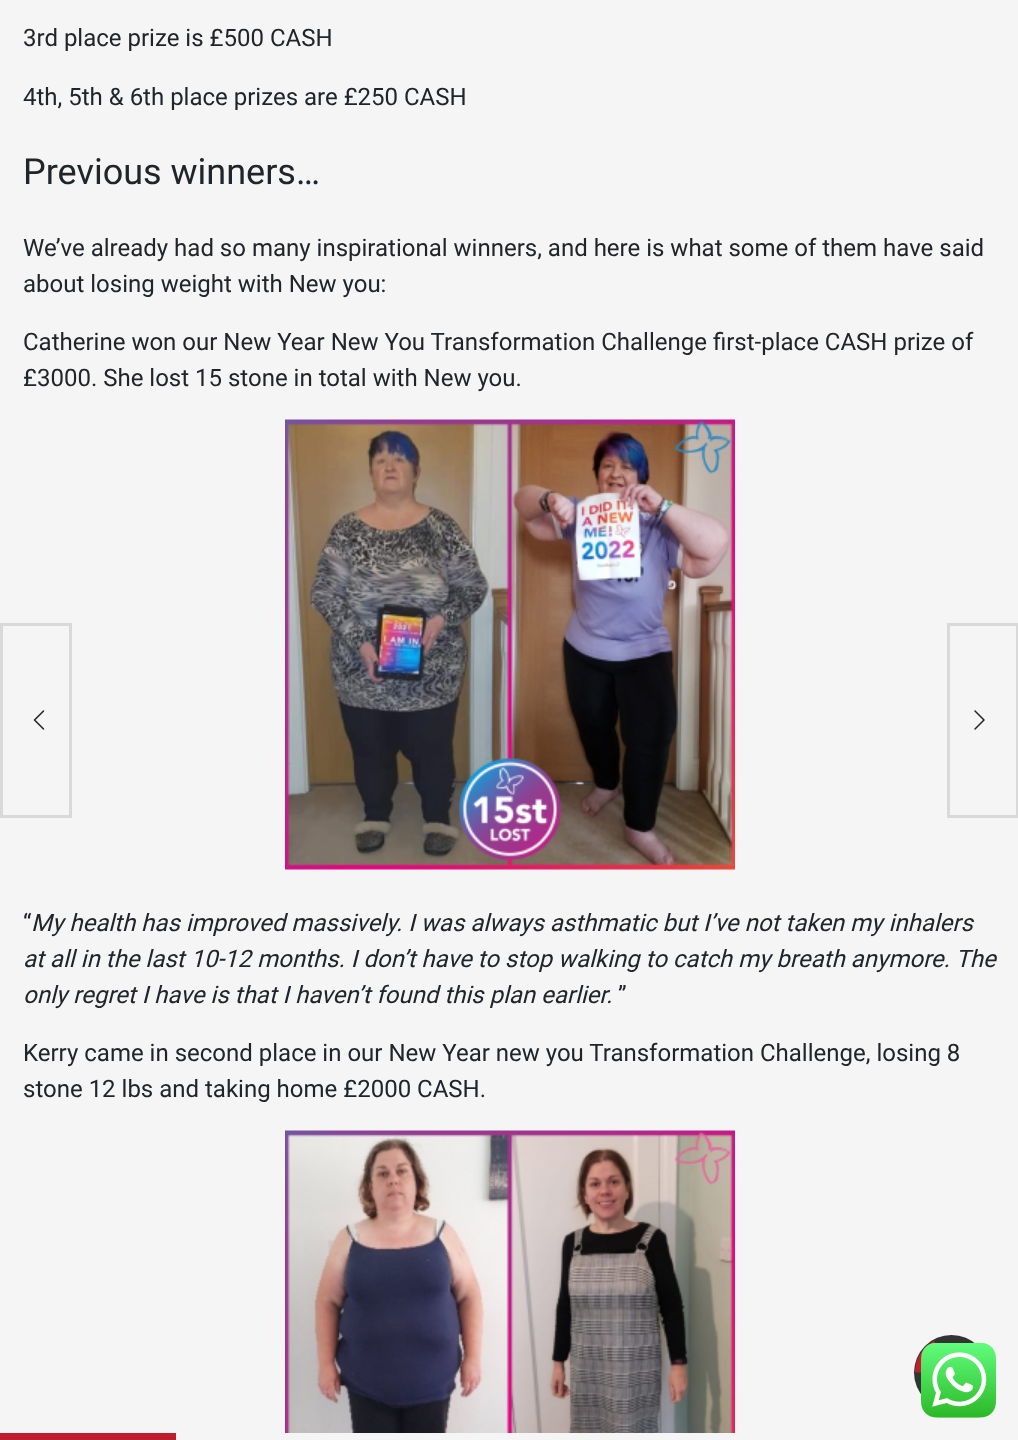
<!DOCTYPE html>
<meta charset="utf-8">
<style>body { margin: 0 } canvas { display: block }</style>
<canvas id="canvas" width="1018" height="1440"></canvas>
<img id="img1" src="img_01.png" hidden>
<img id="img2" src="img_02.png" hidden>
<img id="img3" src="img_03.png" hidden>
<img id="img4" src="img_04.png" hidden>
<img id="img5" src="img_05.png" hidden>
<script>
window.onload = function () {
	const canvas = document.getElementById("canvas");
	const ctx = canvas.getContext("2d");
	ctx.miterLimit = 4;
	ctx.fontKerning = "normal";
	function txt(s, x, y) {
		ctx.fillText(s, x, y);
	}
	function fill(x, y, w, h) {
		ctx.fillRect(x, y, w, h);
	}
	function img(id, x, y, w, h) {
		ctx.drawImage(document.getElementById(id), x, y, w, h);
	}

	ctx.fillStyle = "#F5F5F5";
	fill(0, 0, 1018, 1440);
	img("img1", 285, 419, 450, 451);
	img("img2", 285, 1130, 450, 303);
	ctx.strokeStyle = "#D9D9D9";
	ctx.lineWidth = 3;
	ctx.strokeRect(1.5, 624.5, 69, 192);
	img("img3", 33, 710, 12, 20);
	ctx.strokeRect(948.5, 624.5, 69, 192);
	img("img4", 974, 710, 11, 20);
	ctx.fillStyle = "#333333";
	ctx.beginPath();
	ctx.arc(951.5, 1372.5, 37.5, 0, Math.PI * 2);
	ctx.fill();
	ctx.beginPath();
	ctx.moveTo(918, 1372.5);
	ctx.bezierCurveTo(918, 1360, 925, 1349, 935.5, 1343.5);
	ctx.strokeStyle = "#BF1E2E";
	ctx.lineWidth = 6;
	ctx.stroke();
	ctx.fillStyle = "#BF1E2E";
	fill(0, 1433, 176, 7);
	img("img5", 921, 1343, 75, 75);
	ctx.font = "24px Roboto";
	ctx.fillStyle = "#212529";
	txt("3rd place prize is £500 CASH", 23, 46);
	txt("4th, 5th & 6th place prizes are £250 CASH", 23, 105);
	ctx.font = "36px Roboto";
	txt("Previous winners…", 23, 184);
	ctx.font = "24px Roboto";
	txt("We’ve already had so many inspirational winners, and here is what some of them have said", 23, 256);
	txt("about losing weight with New you:", 23, 292);
	txt("Catherine won our New Year New You Transformation Challenge first-place CASH prize of", 23, 350);
	txt("£3000. She lost 15 stone in total with New you.", 23, 386);
	txt("“", 23, 931);
	ctx.font = "italic 24px Roboto";
	txt("My health has improved massively. I was always asthmatic but I’ve not taken my inhalers", 31, 931);
	txt("at all in the last 10-12 months. I don’t have to stop walking to catch my breath anymore. The", 23, 967);
	txt("only regret I have is that I haven’t found this plan earlier.", 23, 1003);
	ctx.font = "24px Roboto";
	txt("”", 618, 1003);
	txt("Kerry came in second place in our New Year new you Transformation Challenge, losing 8", 23, 1061);
	txt("stone 12 lbs and taking home £2000 CASH.", 23, 1097);
};
</script>
